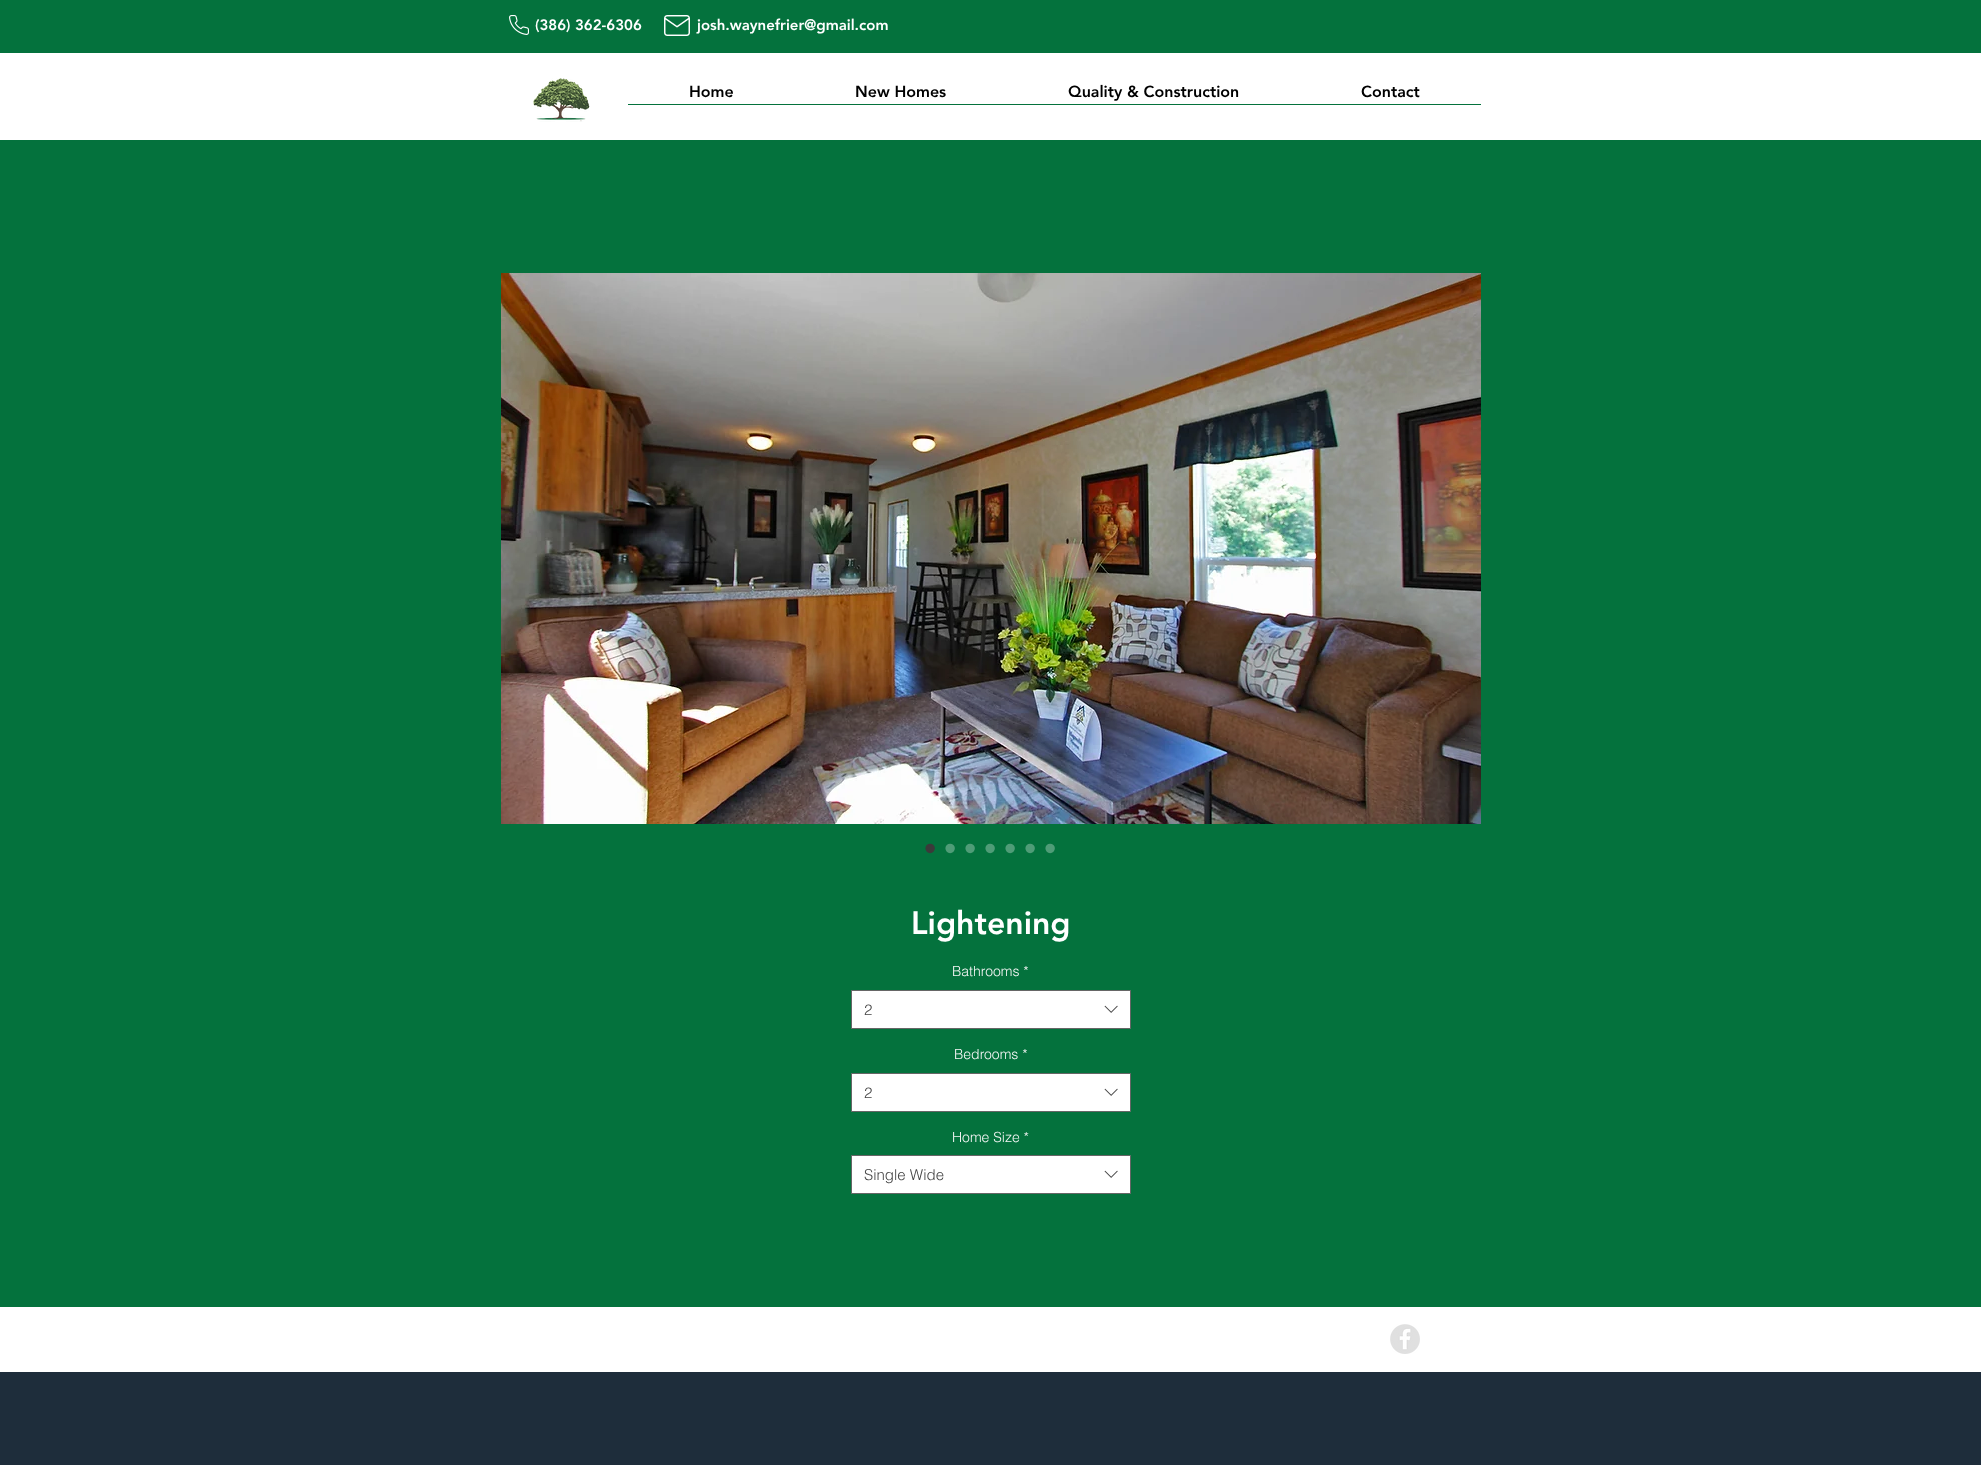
<!DOCTYPE html>
<meta charset="utf-8">
<style>body { margin: 0 } canvas { display: block }</style>
<canvas id="canvas" width="1981" height="1465"></canvas>
<img id="img1" src="img_01.png" hidden>
<img id="img2" src="img_02.png" hidden>
<img id="img3" src="img_03.png" hidden>
<img id="img4" src="img_04.png" hidden>
<img id="img5" src="img_05.png" hidden>
<img id="img6" src="img_06.png" hidden>
<script>
window.onload = function () {
	const canvas = document.getElementById("canvas");
	const ctx = canvas.getContext("2d");
	ctx.miterLimit = 4;
	ctx.fontKerning = "normal";
	function txt(s, x, y) {
		ctx.fillText(s, x, y);
	}
	function fill(x, y, w, h) {
		ctx.fillRect(x, y, w, h);
	}
	function img(id, x, y, w, h) {
		ctx.drawImage(document.getElementById(id), x, y, w, h);
	}

	ctx.fillStyle = "#1E2D3B";
	fill(0, 0, 1981, 1465);
	ctx.fillStyle = "#04723D";
	fill(0, 0, 1981, 53);
	img("img1", 664, 15, 26, 21);
	img("img2", 509, 15, 20, 20);
	ctx.fillStyle = "#FFFFFF";
	fill(0, 53, 1981, 87);
	img("img3", 533, 78, 57, 44);
	ctx.fillStyle = "#04723D";
	fill(628, 104, 853, 1);
	fill(0, 140, 1981, 1167);
	img("img4", 501, 273, 980, 551);
	ctx.fillStyle = "#FFFFFF";
	ctx.beginPath();
	ctx.rect(851.5, 990.5, 279, 38);
	ctx.fill();
	ctx.strokeStyle = "#666666";
	ctx.stroke();
	img("img5", 1104, 1005, 14, 8);
	ctx.beginPath();
	ctx.rect(851.5, 1073.5, 279, 38);
	ctx.fill();
	ctx.stroke();
	img("img5", 1104, 1088, 14, 8);
	ctx.beginPath();
	ctx.rect(851.5, 1155.5, 279, 38);
	ctx.fill();
	ctx.stroke();
	img("img5", 1104, 1170, 14, 8);
	fill(0, 1307, 1981, 65);
	img("img6", 1390, 1324, 30, 30);
	ctx.font = "900 15px 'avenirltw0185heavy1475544'";
	txt("(386) 362-6306", 535, 30);
	txt("josh.waynefrier@gmail.com", 697, 30);
	ctx.font = "900 16px 'avenirltw0185heavy1475544'";
	ctx.fillStyle = "#000000";
	txt("Home", 689, 97);
	txt("New Homes", 855, 97);
	txt("Quality & Construction", 1068, 97);
	txt("Contact", 1361, 97);
	ctx.font = "35px Liberation Sans";
	ctx.fillStyle = "#3B3A3A";
	txt("•", 924, 860);
	ctx.fillStyle = "#4F9C77";
	txt("•", 944, 860);
	txt("•", 964, 860);
	txt("•", 984, 860);
	txt("•", 1004, 860);
	txt("•", 1024, 860);
	txt("•", 1044, 860);
	ctx.font = "900 32px 'avenirltw0185heavy1475544'";
	ctx.fillStyle = "#FFFFFF";
	txt("Lightening", 911, 934);
	ctx.font = "300 14px helvetica";
	ctx.fillStyle = "#F7F7F7";
	txt("Bathrooms *", 952, 976);
	ctx.font = "300 15px helvetica";
	ctx.fillStyle = "#444444";
	txt("2", 864, 1015);
	ctx.font = "300 14px helvetica";
	ctx.fillStyle = "#F7F7F7";
	txt("Bedrooms *", 954, 1059);
	ctx.font = "300 15px helvetica";
	ctx.fillStyle = "#444444";
	txt("2", 864, 1098);
	ctx.font = "300 14px helvetica";
	ctx.fillStyle = "#F7F7F7";
	txt("Home Size *", 952, 1142);
	ctx.font = "300 15px helvetica";
	ctx.fillStyle = "#444444";
	txt("Single Wide", 864, 1180);
};
</script>
